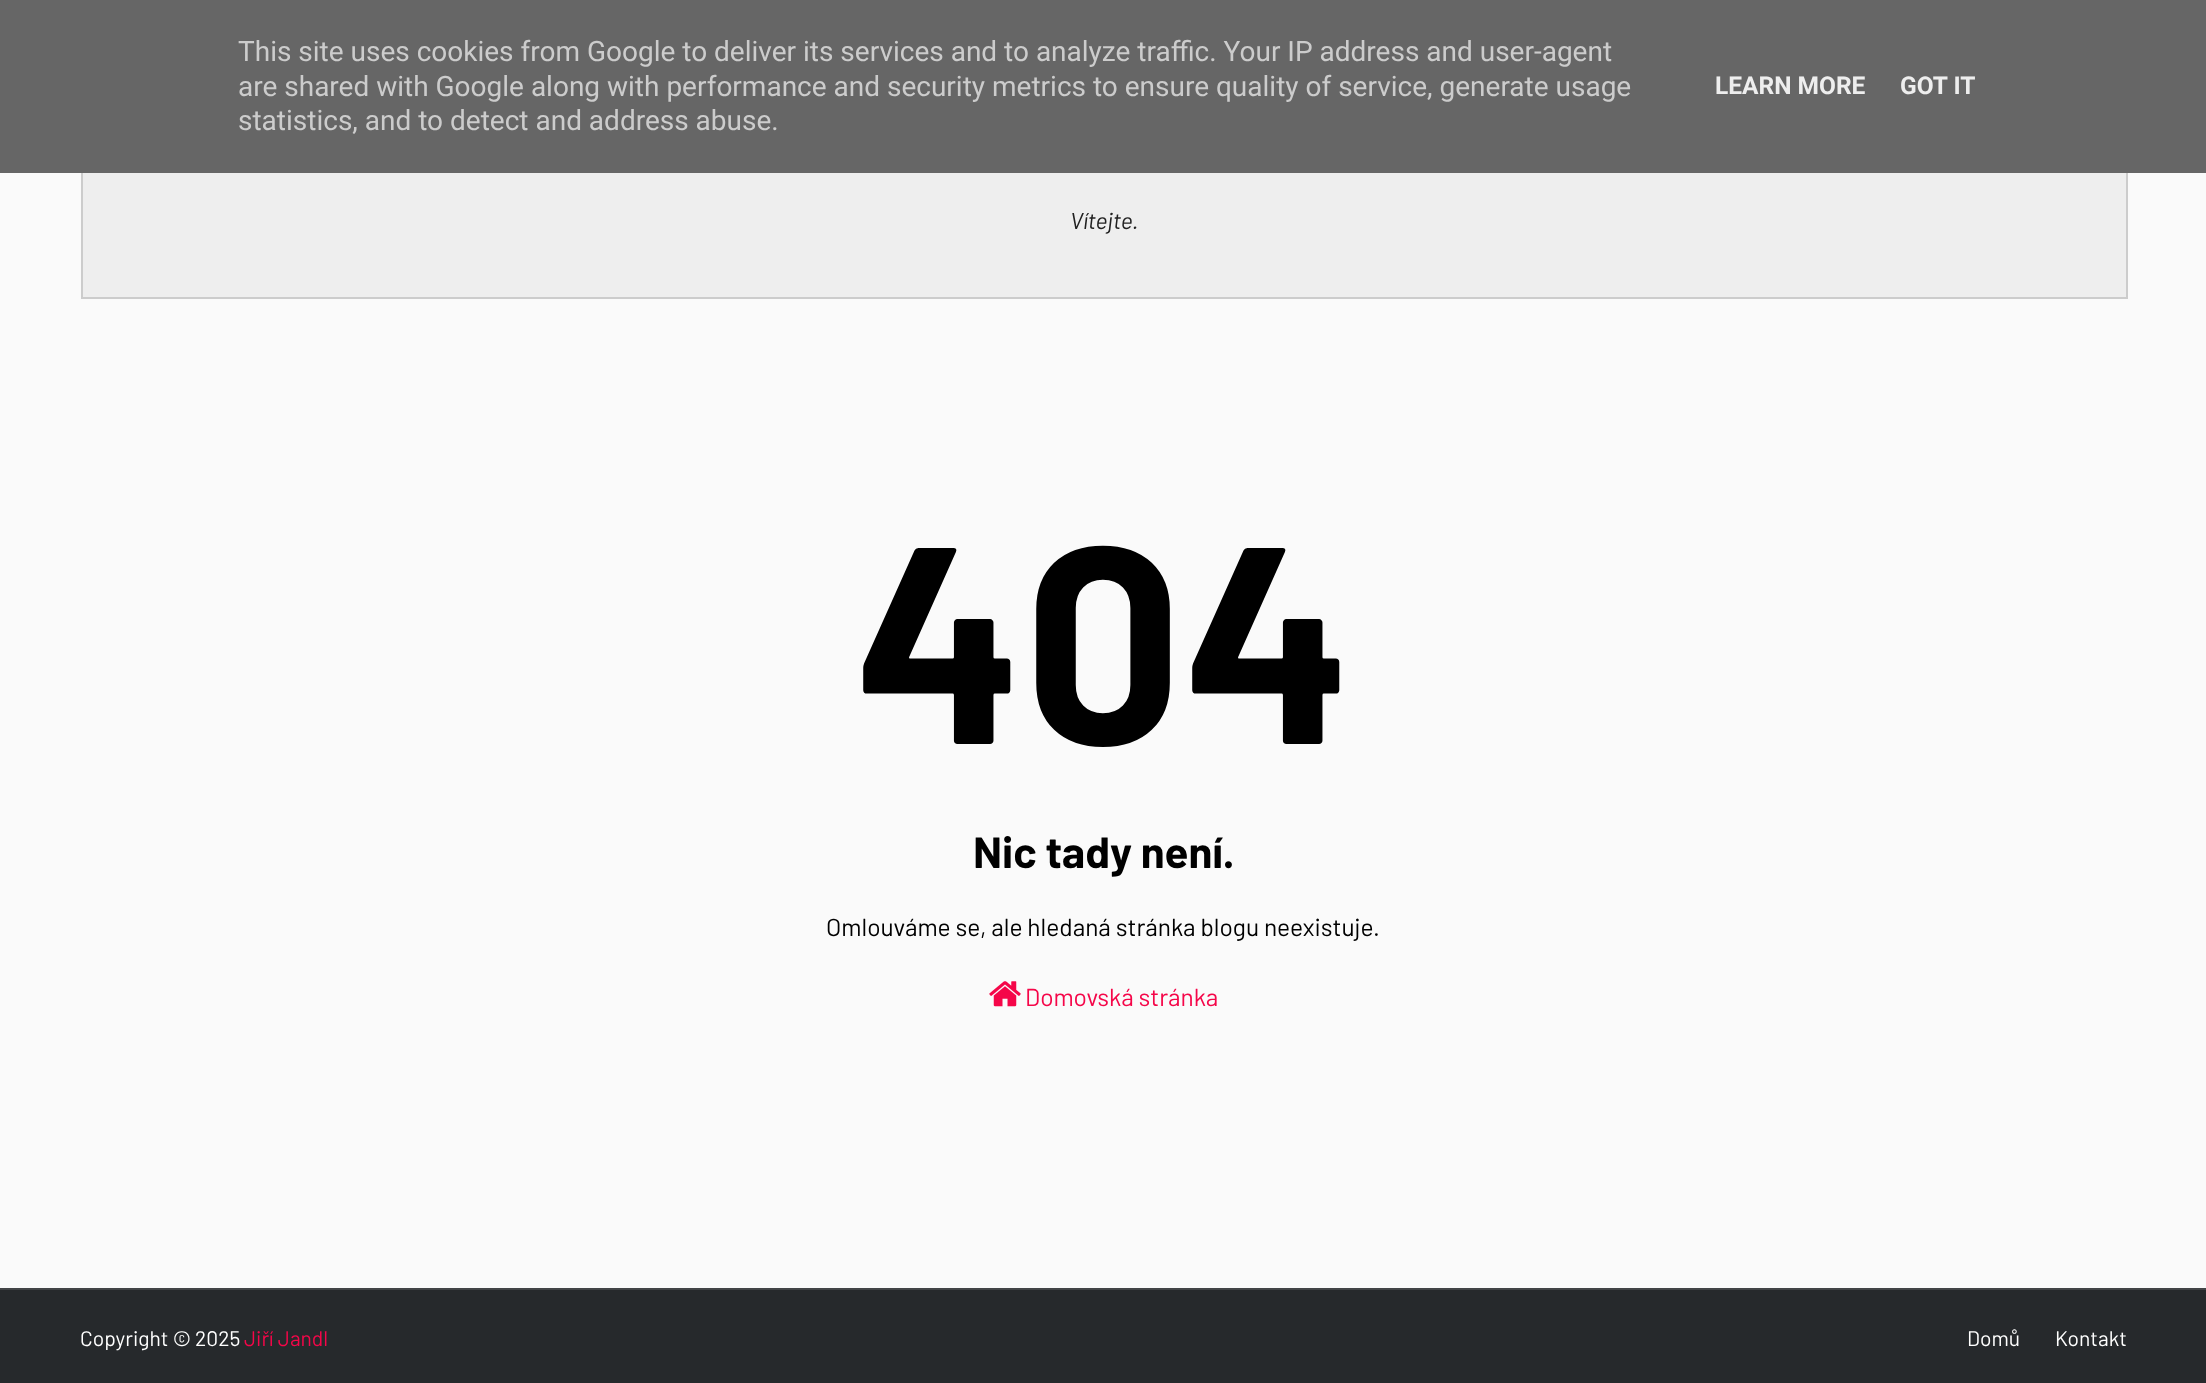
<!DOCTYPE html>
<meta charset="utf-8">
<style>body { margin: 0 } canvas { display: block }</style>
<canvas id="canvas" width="2206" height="1383"></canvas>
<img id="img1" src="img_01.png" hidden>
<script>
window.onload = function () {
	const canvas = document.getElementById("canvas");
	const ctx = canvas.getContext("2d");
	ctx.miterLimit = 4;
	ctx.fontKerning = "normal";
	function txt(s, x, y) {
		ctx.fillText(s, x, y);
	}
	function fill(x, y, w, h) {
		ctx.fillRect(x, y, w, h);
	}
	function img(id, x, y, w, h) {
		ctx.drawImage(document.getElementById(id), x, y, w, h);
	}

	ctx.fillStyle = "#FAFAFA";
	fill(0, 0, 2206, 1383);
	ctx.fillStyle = "#EEEEEE";
	fill(83, 173, 2043, 124);
	ctx.strokeStyle = "#CCCCCC";
	ctx.lineWidth = 2;
	ctx.strokeRect(82, 143, 2045, 155);
	ctx.fillStyle = "#666666";
	fill(0, 0, 2206, 173);
	img("img1", 989, 981, 32, 26);
	ctx.fillStyle = "#26292C";
	fill(0, 1290, 2206, 93);
	ctx.fillStyle = "#424446";
	fill(0, 1288, 2206, 2);
	ctx.font = "28px Roboto";
	ctx.fillStyle = "#CCCCCC";
	txt("This site uses cookies from Google to deliver its services and to analyze traffic. Your IP address and user-agent", 238, 61);
	txt("are shared with Google along with performance and security metrics to ensure quality of service, generate usage", 238, 96);
	txt("statistics, and to detect and address abuse.", 238, 130);
	ctx.font = "bold 24.5px Roboto";
	ctx.fillStyle = "#EEEEEE";
	txt("LEARN MORE", 1715, 94);
	txt("GOT IT", 1900, 94);
	ctx.font = "italic 23px Barlow";
	ctx.fillStyle = "#212121";
	txt("Vítejte.", 1070, 229);
	ctx.font = "bold 280px Barlow";
	ctx.fillStyle = "#000000";
	txt("404", 854, 744);
	ctx.font = "bold 43.75px Barlow";
	txt("Nic tady není.", 973, 868);
	ctx.font = "24.5px Barlow";
	txt("Omlouváme se, ale hledaná stránka blogu neexistuje.", 826, 936);
	ctx.fillStyle = "#F50649";
	txt("Domovská stránka", 1025, 1006);
	ctx.font = "21px Barlow";
	ctx.fillStyle = "#FFFFFF";
	txt("Copyright © 2025", 80, 1346);
	ctx.fillStyle = "#F50649";
	txt("Jiří Jandl", 244, 1346);
	ctx.fillStyle = "#FFFFFF";
	txt("Domů", 1967, 1346);
	txt("Kontakt", 2055, 1346);
};
</script>
